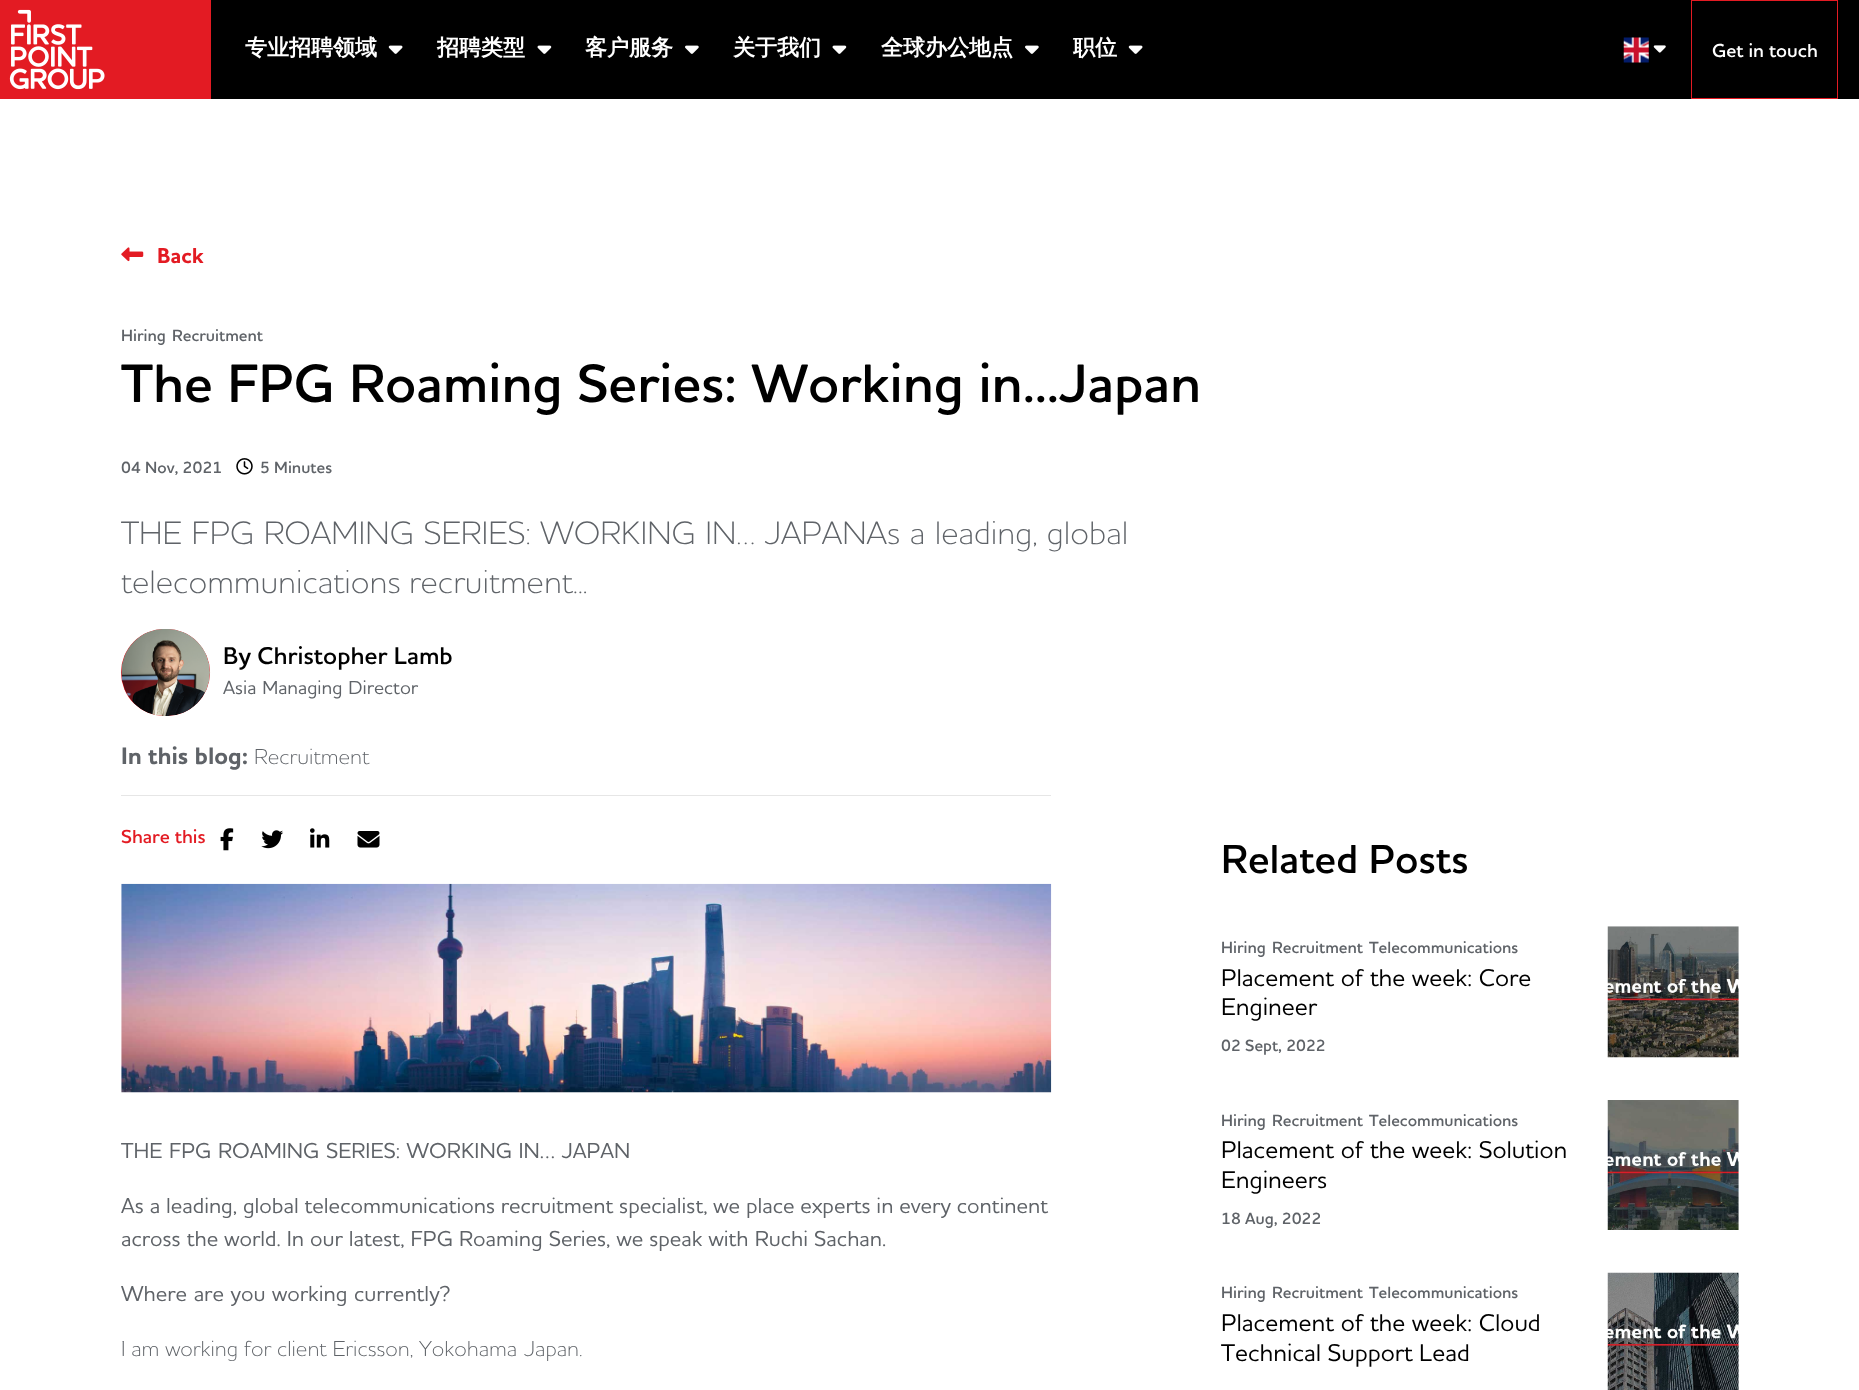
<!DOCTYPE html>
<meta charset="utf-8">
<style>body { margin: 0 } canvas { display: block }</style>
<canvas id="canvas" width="1859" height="1390"></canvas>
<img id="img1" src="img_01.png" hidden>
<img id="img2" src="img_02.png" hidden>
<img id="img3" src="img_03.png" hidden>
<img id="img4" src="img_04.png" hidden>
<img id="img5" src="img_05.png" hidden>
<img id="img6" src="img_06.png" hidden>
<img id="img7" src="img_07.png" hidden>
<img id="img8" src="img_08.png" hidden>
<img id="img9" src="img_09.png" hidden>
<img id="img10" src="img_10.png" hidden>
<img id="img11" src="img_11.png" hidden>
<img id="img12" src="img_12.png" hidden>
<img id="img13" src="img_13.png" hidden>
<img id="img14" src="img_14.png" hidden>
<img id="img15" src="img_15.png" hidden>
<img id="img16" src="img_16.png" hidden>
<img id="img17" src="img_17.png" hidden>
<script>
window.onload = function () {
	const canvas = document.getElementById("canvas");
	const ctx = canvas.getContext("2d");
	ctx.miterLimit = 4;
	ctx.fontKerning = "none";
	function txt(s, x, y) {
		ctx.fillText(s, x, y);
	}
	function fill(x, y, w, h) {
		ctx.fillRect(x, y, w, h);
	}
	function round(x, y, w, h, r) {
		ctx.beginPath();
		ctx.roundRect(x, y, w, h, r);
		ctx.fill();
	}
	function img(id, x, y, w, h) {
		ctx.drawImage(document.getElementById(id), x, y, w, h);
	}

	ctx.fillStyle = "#FFFFFF";
	fill(0, 0, 1859, 1390);
	ctx.fillStyle = "#000000";
	fill(211, 0, 1648, 99);
	img("img1", 0, 0, 211, 99);
	img("img2", 388, 45, 15, 9);
	img("img3", 537, 45, 15, 9);
	img("img4", 685, 45, 14, 9);
	img("img3", 832, 45, 15, 9);
	img("img4", 1025, 45, 14, 9);
	img("img2", 1128, 45, 15, 9);
	img("img5", 1623, 37, 26, 26);
	img("img6", 1653, 45, 13, 8);
	ctx.strokeStyle = "#E31B23";
	ctx.strokeRect(1691.5, 0.5, 146, 98);
	img("img7", 121, 247, 23, 15);
	img("img8", 236, 458, 17, 17);
	ctx.fillStyle = "#E31B23";
	round(121, 629, 89, 87, 43.5);
	img("img9", 121, 629, 89, 87);
	ctx.fillStyle = "#E6E6E6";
	fill(121, 795, 930, 1);
	img("img10", 220, 828, 14, 23);
	img("img11", 261, 830, 23, 19);
	img("img12", 310, 828, 20, 20);
	img("img13", 357, 831, 23, 17);
	img("img14", 121, 883, 931, 210);
	img("img15", 1607, 926, 132, 132);
	img("img16", 1607, 1100, 132, 130);
	img("img17", 1607, 1272, 132, 118);
	ctx.font = "bold 22px WenQuanYi Zen Hei";
	ctx.fillStyle = "#FFFFFF";
	txt("专业招聘领域", 245, 55);
	txt("招聘类型", 437, 55);
	txt("客户服务", 585, 55);
	txt("关于我们", 733, 55);
	txt("全球办公地点", 881, 55);
	txt("职位", 1073, 55);
	ctx.font = "600 19.25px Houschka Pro";
	txt("Get in touch", 1712, 57);
	ctx.font = "bold 22px Houschka Pro";
	ctx.fillStyle = "#E31B23";
	txt("Back", 157, 263);
	ctx.font = "600 16.5px Houschka Pro";
	ctx.fillStyle = "#5F6368";
	txt("Hiring", 121, 341);
	txt("Recruitment", 172, 341);
	ctx.wordSpacing = "0.5px";
	ctx.font = "600 55px Houschka Pro";
	ctx.fillStyle = "#000000";
	txt("The FPG Roaming Series: Working in...Japan", 121, 402);
	ctx.wordSpacing = "0px";
	ctx.font = "600 16.5px Houschka Pro";
	ctx.fillStyle = "#5F6368";
	txt("04 Nov, 2021", 121, 473);
	txt("5 Minutes", 260, 473);
	ctx.wordSpacing = "1.25px";
	ctx.font = "300 33px Houschka Pro";
	txt("THE FPG ROAMING SERIES: WORKING IN… JAPANAs a leading, global", 121, 544);
	ctx.wordSpacing = "0px";
	txt("telecommunications recruitment...", 121, 593);
	ctx.font = "600 24.75px Houschka Pro";
	ctx.fillStyle = "#000000";
	txt("By Christopher Lamb", 223, 664);
	ctx.wordSpacing = "1px";
	ctx.font = "500 19.25px Houschka Pro";
	ctx.fillStyle = "#5F6368";
	txt("Asia Managing Director", 223, 694);
	ctx.wordSpacing = "0px";
	ctx.font = "bold 24.25px Houschka Pro";
	txt("In this blog:", 121, 764);
	ctx.font = "300 22px Houschka Pro";
	txt("Recruitment", 254, 764);
	ctx.font = "600 19.25px Houschka Pro";
	ctx.fillStyle = "#E31B23";
	txt("Share this", 121, 843);
	ctx.wordSpacing = "1px";
	ctx.font = "500 22px Houschka Pro";
	ctx.fillStyle = "#5F6368";
	txt("THE FPG ROAMING SERIES: WORKING IN… JAPAN", 121, 1158);
	ctx.wordSpacing = "0.25px";
	txt("As a leading, global telecommunications recruitment specialist, we place experts in every continent", 121, 1213);
	ctx.wordSpacing = "0.5px";
	txt("across the world. In our latest, FPG Roaming Series, we speak with Ruchi Sachan.", 121, 1246);
	ctx.wordSpacing = "1px";
	txt("Where are you working currently?", 121, 1301);
	ctx.wordSpacing = "0.25px";
	ctx.font = "300 22px Houschka Pro";
	txt("I am working for client Ericsson, Yokohama", 121, 1356);
	txt("Japan.", 524, 1356);
	ctx.wordSpacing = "0px";
	ctx.font = "600 41.25px Houschka Pro";
	ctx.fillStyle = "#000000";
	txt("Related Posts", 1221, 873);
	ctx.font = "600 16.5px Houschka Pro";
	ctx.fillStyle = "#5F6368";
	txt("Hiring", 1221, 953);
	txt("Recruitment", 1272, 953);
	txt("Telecommunications", 1369, 953);
	ctx.wordSpacing = "0.5px";
	ctx.font = "500 24.75px Houschka Pro";
	ctx.fillStyle = "#000000";
	txt("Placement of the week: Core", 1221, 986);
	ctx.wordSpacing = "0px";
	txt("Engineer", 1221, 1015);
	ctx.font = "600 16.5px Houschka Pro";
	ctx.fillStyle = "#5F6368";
	txt("02 Sept, 2022", 1221, 1051);
	txt("Hiring", 1221, 1126);
	txt("Recruitment", 1272, 1126);
	txt("Telecommunications", 1369, 1126);
	ctx.wordSpacing = "0.5px";
	ctx.font = "500 24.75px Houschka Pro";
	ctx.fillStyle = "#000000";
	txt("Placement of the week: Solution", 1221, 1158);
	ctx.wordSpacing = "0px";
	txt("Engineers", 1221, 1188);
	ctx.font = "600 16.5px Houschka Pro";
	ctx.fillStyle = "#5F6368";
	txt("18 Aug, 2022", 1221, 1224);
	txt("Hiring", 1221, 1298);
	txt("Recruitment", 1272, 1298);
	txt("Telecommunications", 1369, 1298);
	ctx.wordSpacing = "0.5px";
	ctx.font = "500 24.75px Houschka Pro";
	ctx.fillStyle = "#000000";
	txt("Placement of the week: Cloud", 1221, 1331);
	ctx.wordSpacing = "0px";
	txt("Technical Support Lead", 1221, 1361);
};
</script>
